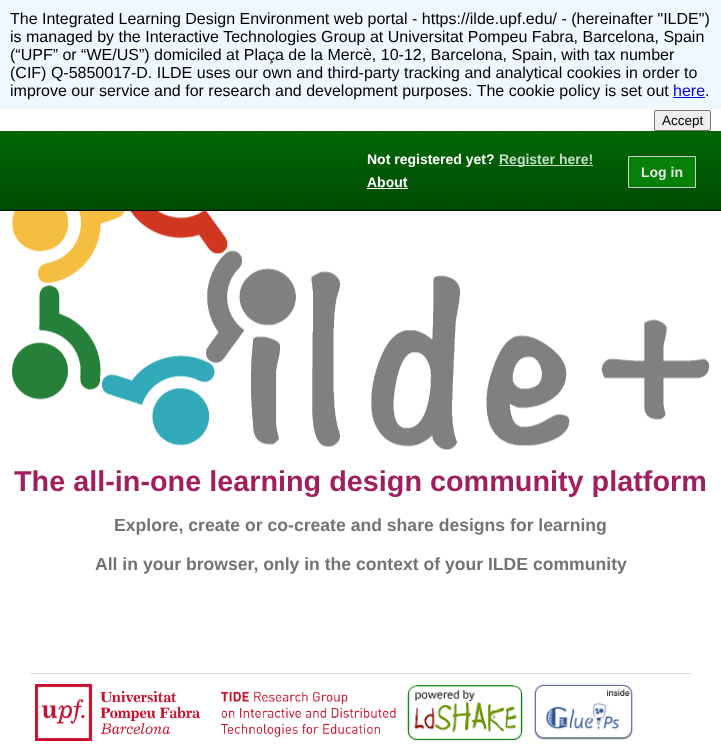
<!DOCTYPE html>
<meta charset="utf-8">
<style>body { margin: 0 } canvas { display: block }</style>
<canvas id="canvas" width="721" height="748"></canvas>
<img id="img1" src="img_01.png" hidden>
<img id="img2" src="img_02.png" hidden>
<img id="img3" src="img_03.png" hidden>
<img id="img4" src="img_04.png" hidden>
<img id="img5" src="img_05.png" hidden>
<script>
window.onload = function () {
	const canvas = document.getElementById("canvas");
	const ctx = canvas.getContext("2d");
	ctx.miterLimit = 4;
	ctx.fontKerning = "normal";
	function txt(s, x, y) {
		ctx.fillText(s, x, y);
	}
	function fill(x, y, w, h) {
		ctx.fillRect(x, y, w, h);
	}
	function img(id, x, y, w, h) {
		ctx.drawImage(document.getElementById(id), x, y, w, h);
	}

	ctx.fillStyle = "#FFFFFF";
	fill(0, 0, 721, 748);
	ctx.fillStyle = "#F0F8FF";
	fill(0, 0, 721, 110);
	ctx.fillStyle = "#0000EE";
	fill(673, 97, 32, 1);
	ctx.fillStyle = "#EFEFEF";
	ctx.beginPath();
	ctx.roundRect(654.5, 110.5, 56, 20, 1.5);
	ctx.fill();
	ctx.strokeStyle = "#767676";
	ctx.stroke();
	img("img1", 0, 131, 721, 80);
	ctx.fillStyle = "#C3DEC4";
	fill(499, 165, 94, 1);
	ctx.fillStyle = "#FFFFFF";
	fill(367, 188, 41, 1);
	ctx.fillStyle = "#078007";
	ctx.beginPath();
	ctx.rect(628.5, 156.5, 67, 31);
	ctx.fill();
	ctx.strokeStyle = "#CCCCCC";
	ctx.stroke();
	img("img2", 12, 211, 697, 239);
	ctx.fillStyle = "#DADBDC";
	fill(30, 673, 661, 1);
	img("img3", 35, 684, 361, 57);
	img("img4", 407, 685, 116, 56);
	img("img5", 534, 684, 99, 56);
	ctx.font = "16px Liberation Sans";
	ctx.fillStyle = "#000000";
	txt("The Integrated Learning Design Environment web portal - https://ilde.upf.edu/ - (hereinafter \"ILDE\")", 10, 24);
	txt("is managed by the Interactive Technologies Group at Universitat Pompeu Fabra, Barcelona, Spain", 10, 42);
	txt("(“UPF” or “WE/US”) domiciled at Plaça de la Mercè, 10-12, Barcelona, Spain, with tax number", 10, 60);
	txt("(CIF) Q-5850017-D. ILDE uses our own and third-party tracking and analytical cookies in order to", 10, 78);
	txt("improve our service and for research and development purposes. The cookie policy is set out", 10, 96);
	ctx.fillStyle = "#0000EE";
	txt("here", 673, 96);
	ctx.fillStyle = "#000000";
	txt(".", 705, 96);
	ctx.font = "13.5px Liberation Sans";
	txt("Accept", 662, 125);
	ctx.font = "bold 14px Liberation Sans";
	ctx.fillStyle = "#FFFFFF";
	txt("Not registered yet?", 367, 164);
	ctx.fillStyle = "#C3DEC4";
	txt("Register here!", 499, 164);
	ctx.fillStyle = "#FFFFFF";
	txt("About", 367, 187);
	ctx.fillStyle = "#E4E3E3";
	txt("Log in", 641, 177);
	ctx.font = "bold 28.8px Liberation Sans";
	ctx.fillStyle = "#9F1F5F";
	txt("The all-in-one learning design community platform", 14, 491);
	ctx.font = "bold 17.6px Liberation Sans";
	ctx.fillStyle = "#737373";
	txt("Explore, create or co-create and share designs for learning", 114, 531);
	txt("All in your browser, only in the context of your ILDE community", 95, 570);
};
</script>
